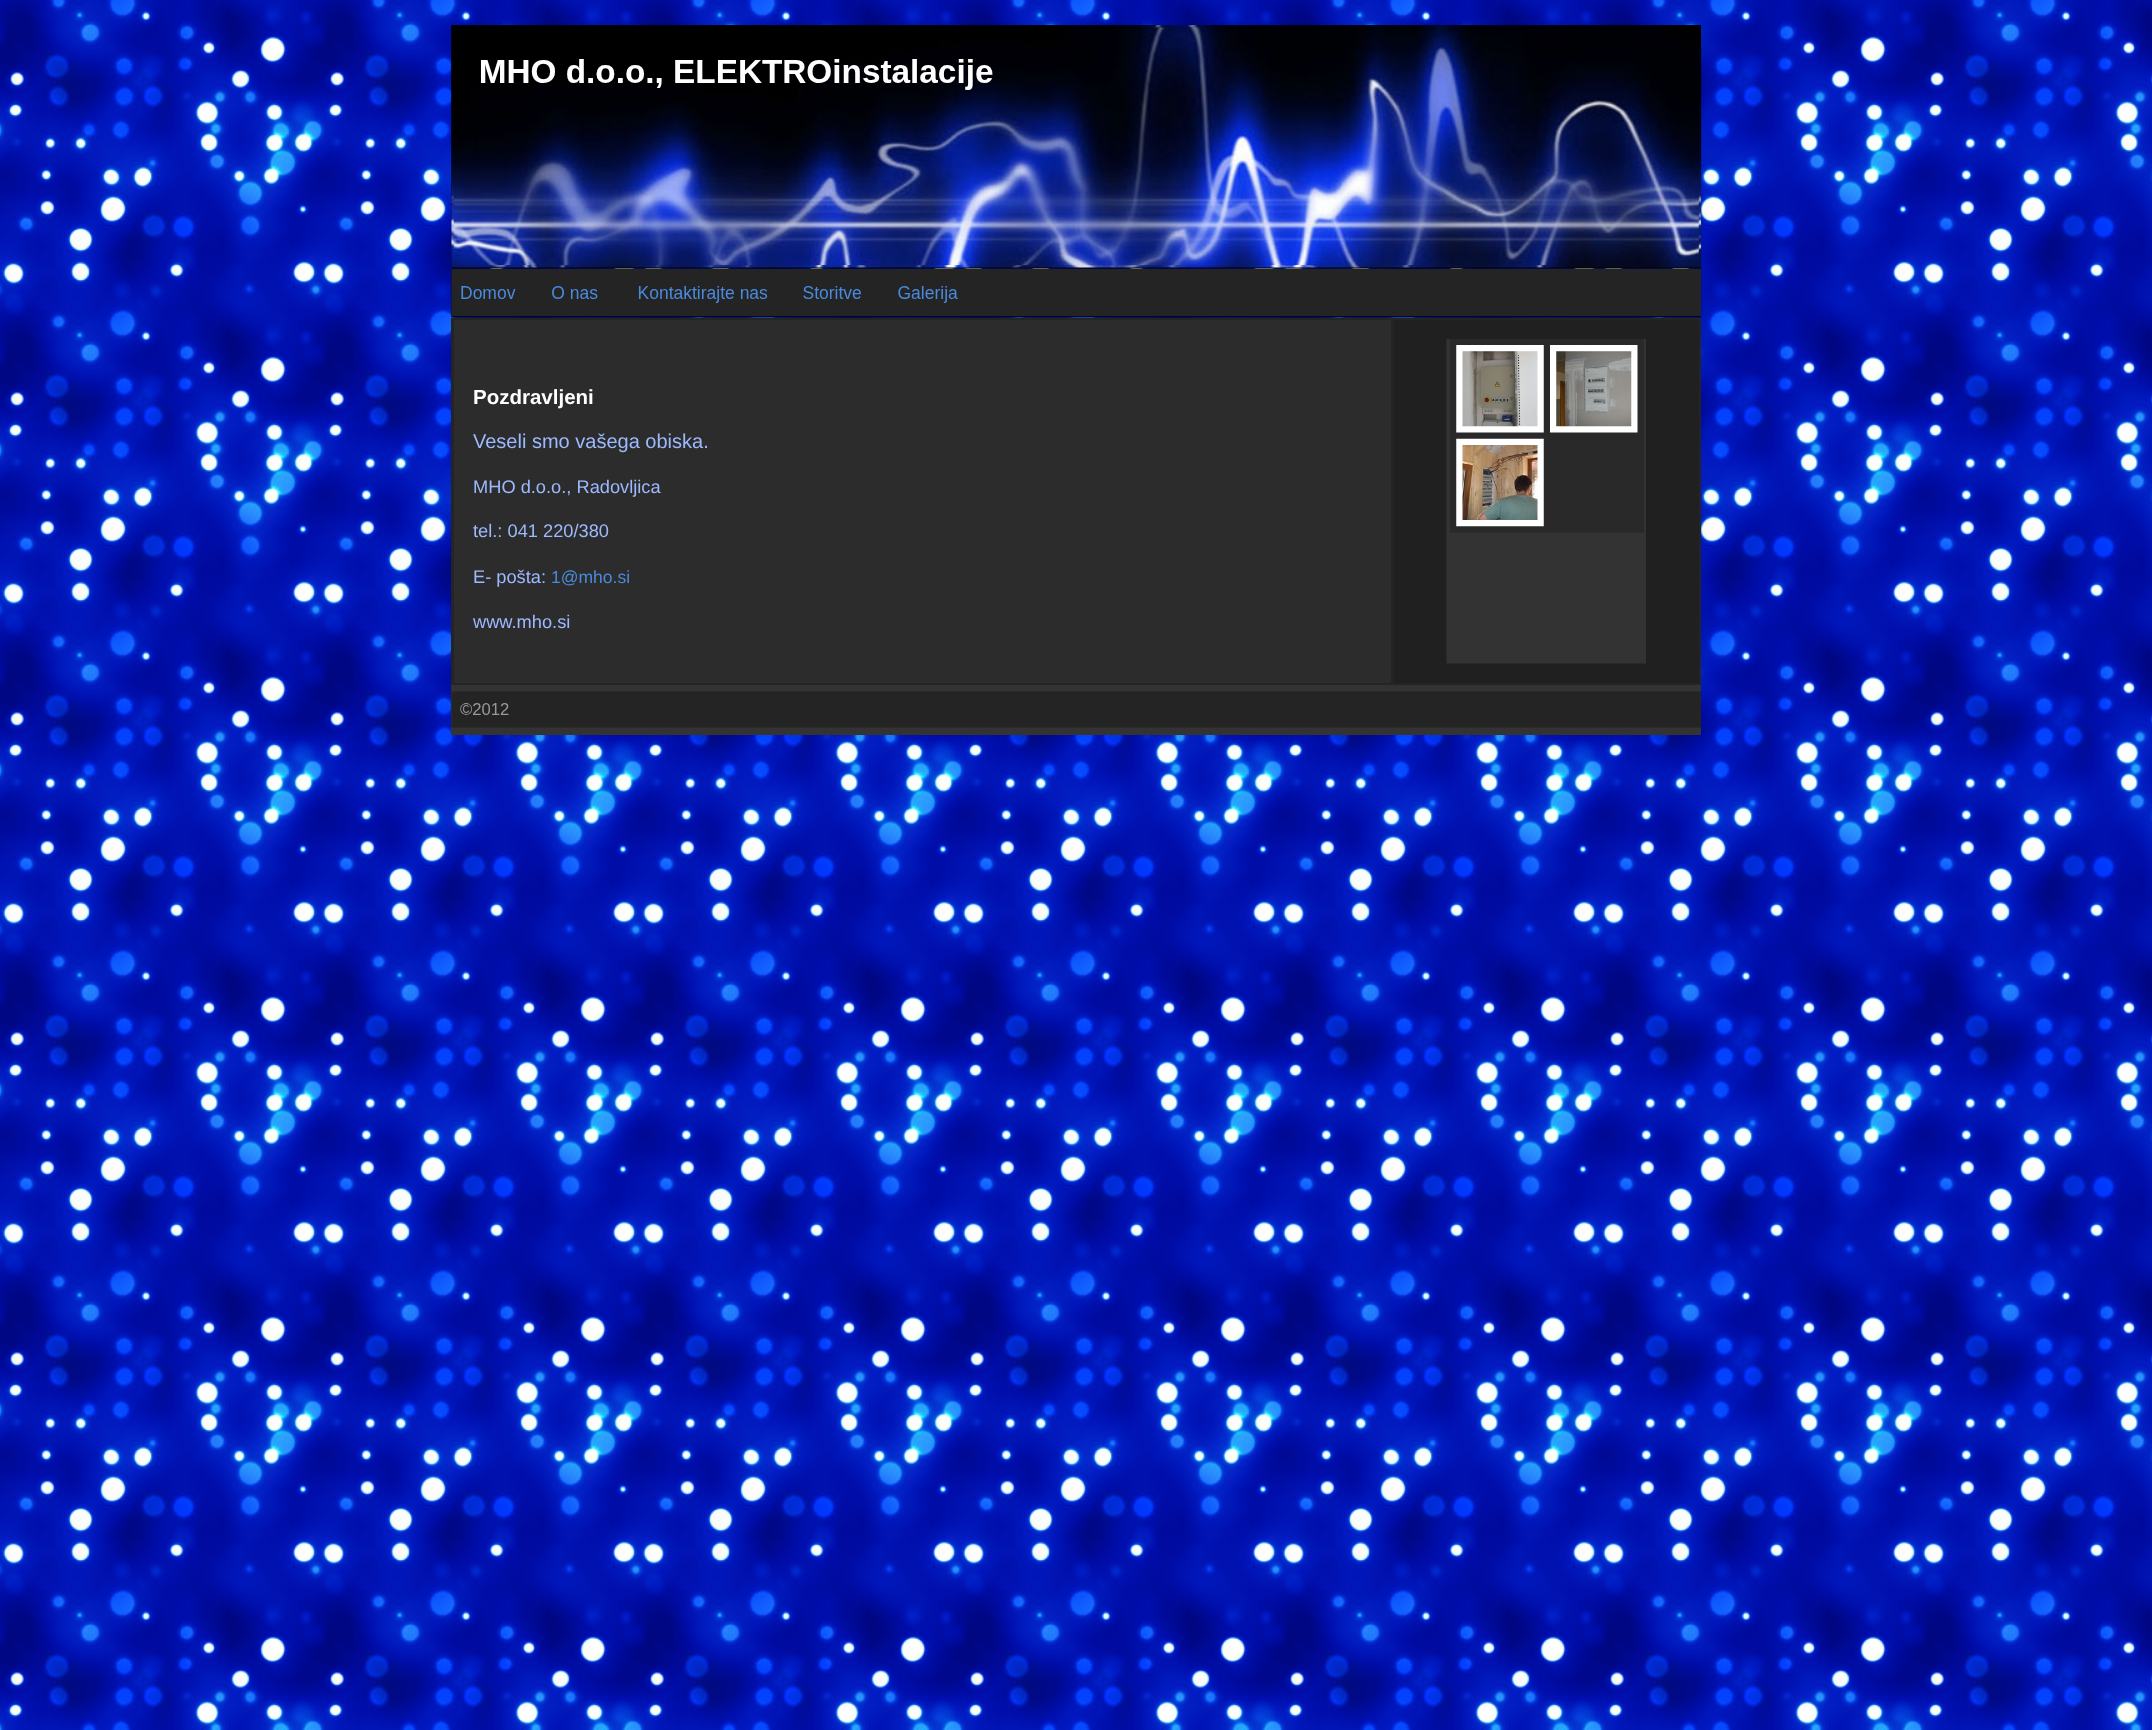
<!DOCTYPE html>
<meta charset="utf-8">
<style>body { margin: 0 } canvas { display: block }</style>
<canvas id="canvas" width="2152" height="1730"></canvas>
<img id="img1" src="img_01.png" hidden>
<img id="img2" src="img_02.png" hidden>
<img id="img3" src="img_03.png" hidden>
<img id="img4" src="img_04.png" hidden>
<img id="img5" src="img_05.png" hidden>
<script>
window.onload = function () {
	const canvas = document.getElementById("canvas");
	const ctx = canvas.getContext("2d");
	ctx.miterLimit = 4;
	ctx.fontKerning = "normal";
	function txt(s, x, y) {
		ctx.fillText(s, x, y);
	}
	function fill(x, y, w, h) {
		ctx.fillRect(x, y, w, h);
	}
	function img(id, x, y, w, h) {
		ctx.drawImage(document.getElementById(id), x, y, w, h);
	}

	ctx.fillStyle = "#FFFFFF";
	fill(0, 0, 2152, 1730);
	img("img1", 0, 0, 2152, 1730);
	img("img2", 451, 25, 1251, 244);
	img("img3", 451, 268, 1251, 50);
	ctx.fillStyle = "#242424";
	fill(451, 318, 1250, 367);
	ctx.fillStyle = "#2D2C2C";
	fill(454, 320, 937, 363);
	ctx.fillStyle = "#202020";
	fill(1394, 320, 305, 363);
	img("img4", 1446, 339, 200, 325);
	ctx.fillStyle = "#333333";
	fill(451, 685, 1250, 50);
	img("img5", 451, 691, 1251, 37);
	ctx.font = "bold 20.5px Liberation Sans";
	ctx.fillStyle = "#FFFFFF";
	txt("Pozdravljeni", 473, 404);
	ctx.font = "20px Liberation Sans";
	ctx.fillStyle = "#9CBAFF";
	txt("Veseli smo vašega obiska.", 473, 448);
	ctx.font = "18.25px Liberation Sans";
	txt("MHO d.o.o., Radovljica", 473, 493);
	txt("tel.: 041 220/380", 473, 537);
	txt("E- pošta:", 473, 583);
	ctx.font = "17.5px Liberation Sans";
	ctx.fillStyle = "#4A8ADE";
	txt("1@mho.si", 551, 583);
	ctx.font = "18.25px Liberation Sans";
	ctx.fillStyle = "#9CBAFF";
	txt("www.mho.si", 473, 628);
};
</script>
